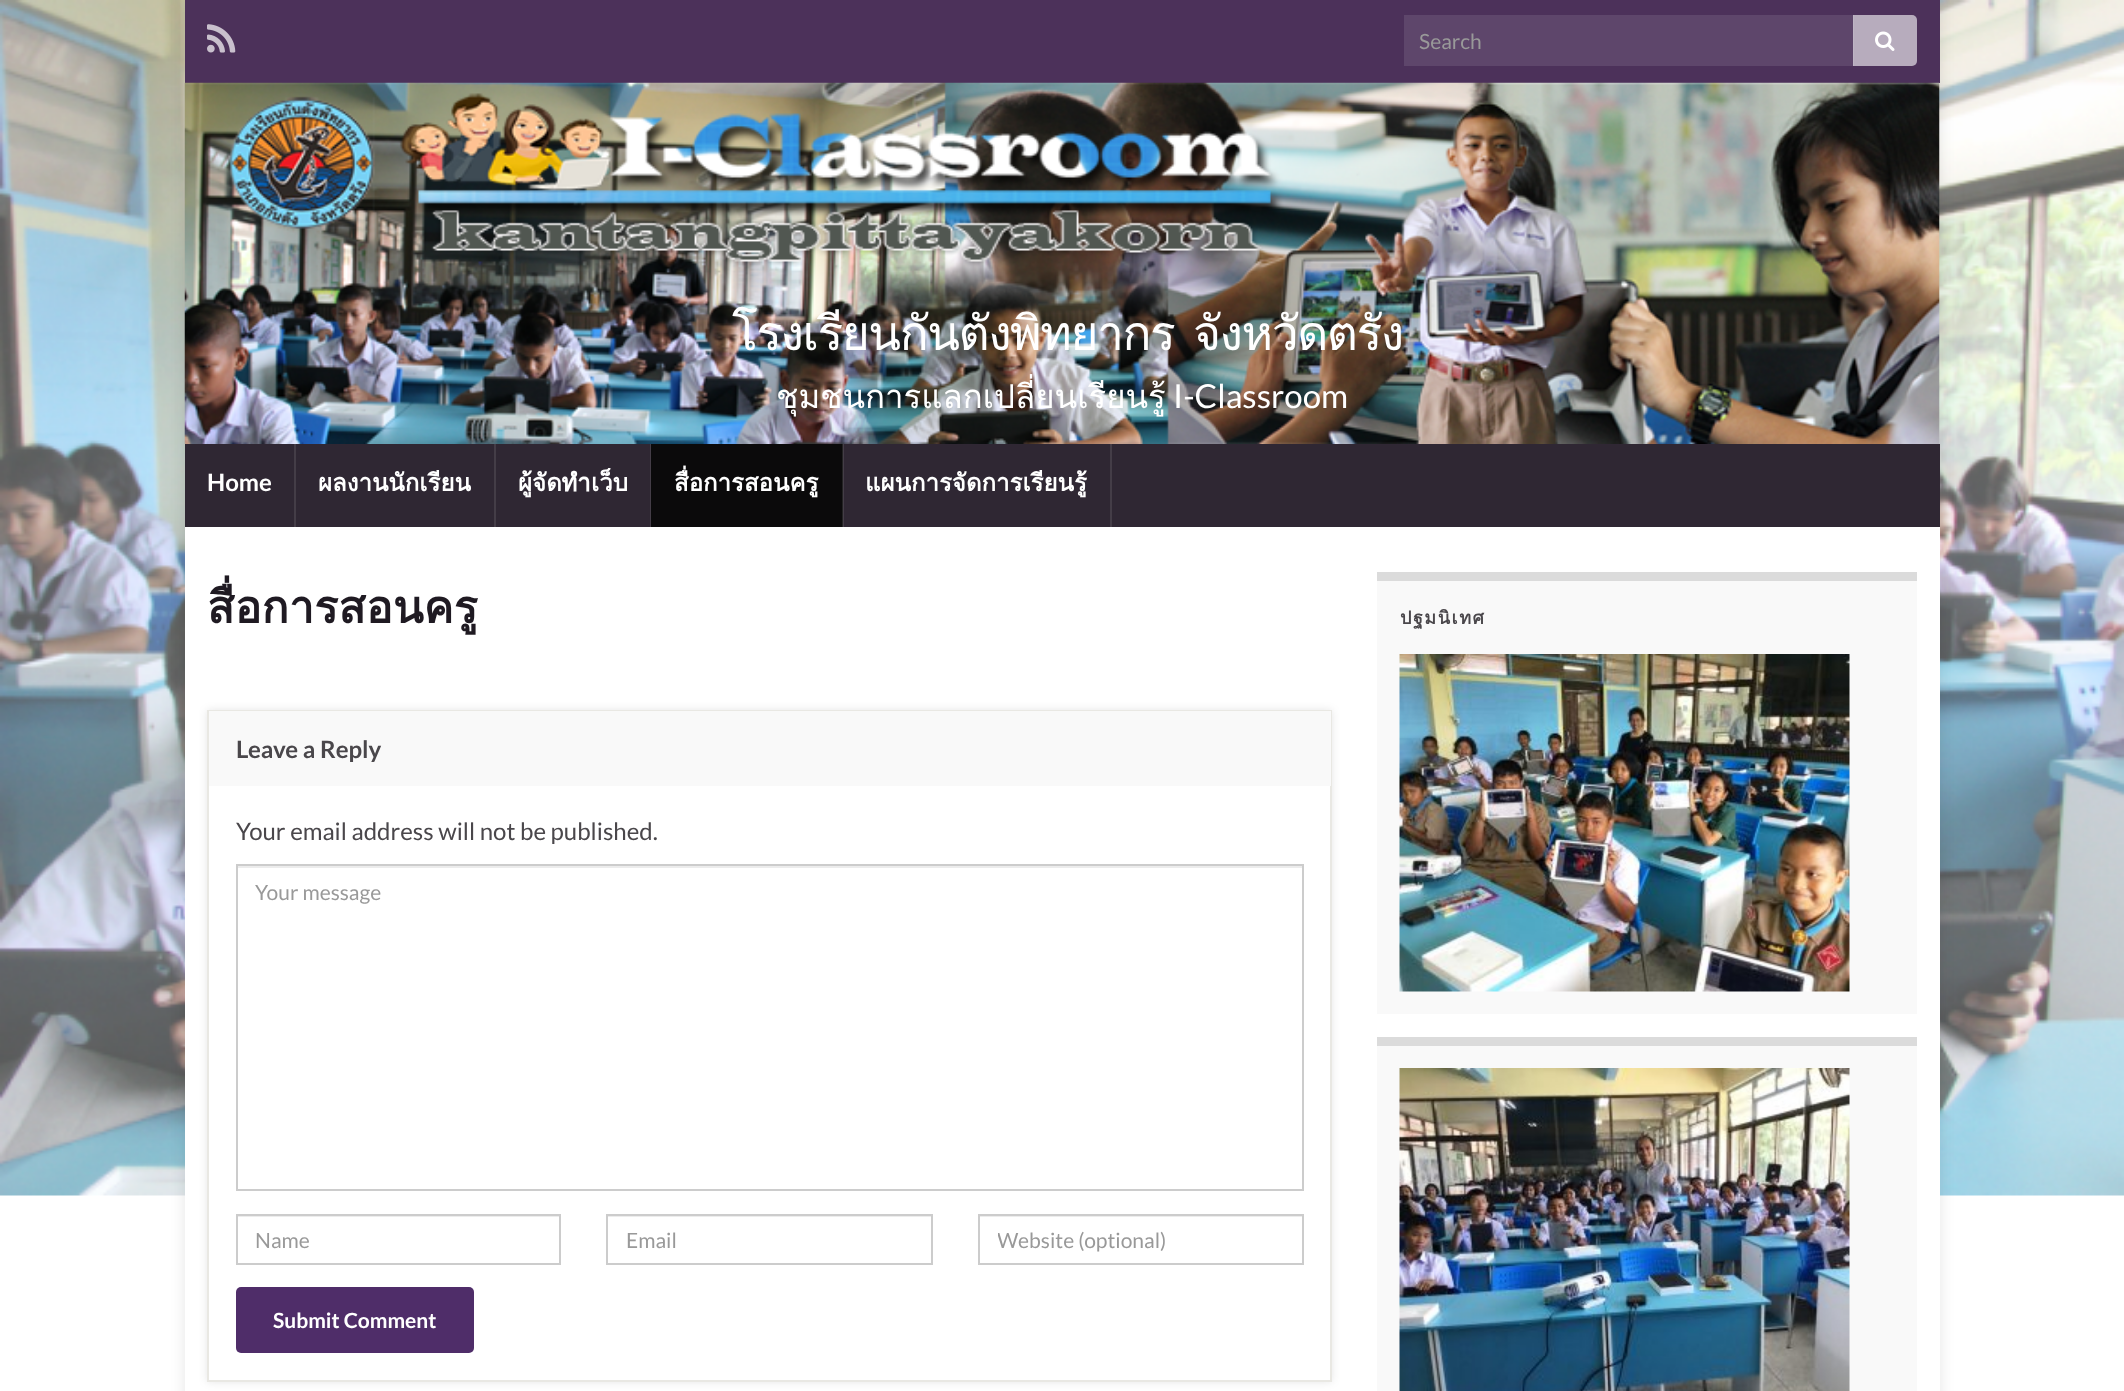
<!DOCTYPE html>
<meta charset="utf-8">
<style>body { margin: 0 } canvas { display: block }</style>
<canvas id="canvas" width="2124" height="1391"></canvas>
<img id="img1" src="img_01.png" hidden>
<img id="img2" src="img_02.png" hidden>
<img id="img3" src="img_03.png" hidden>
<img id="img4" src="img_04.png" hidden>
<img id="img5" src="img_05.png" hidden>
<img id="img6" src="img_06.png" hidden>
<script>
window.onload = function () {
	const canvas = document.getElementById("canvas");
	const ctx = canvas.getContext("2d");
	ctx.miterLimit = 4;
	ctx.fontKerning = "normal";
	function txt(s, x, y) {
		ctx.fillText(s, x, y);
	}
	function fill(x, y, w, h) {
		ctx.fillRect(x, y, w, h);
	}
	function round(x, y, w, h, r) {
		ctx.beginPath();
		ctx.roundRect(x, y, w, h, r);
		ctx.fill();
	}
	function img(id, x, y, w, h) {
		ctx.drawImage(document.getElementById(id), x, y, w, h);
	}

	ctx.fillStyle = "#FFFFFF";
	fill(0, 0, 2124, 1391);
	img("img1", 0, 0, 2124, 1196);
	ctx.fillStyle = "rgba(0, 0, 0, 0.1)";
	ctx.filter = "blur(7.5px)";
	ctx.beginPath();
	ctx.rect(185, 0, 1755, 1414);
	ctx.fill();
	ctx.filter = "none";
	ctx.fillStyle = "#4C315A";
	fill(185, 0, 1755, 83);
	img("img2", 207, 24, 29, 29);
	ctx.fillStyle = "#5E466B";
	fill(1404, 15, 450, 51);
	ctx.fillStyle = "rgba(255, 255, 255, 0.6)";
	ctx.beginPath();
	ctx.roundRect(1853, 15, 64, 51, [0, 5, 5, 0]);
	ctx.fill();
	img("img3", 1875, 31, 20, 20);
	img("img4", 184, 82, 1756, 362);
	ctx.fillStyle = "#2F2733";
	fill(185, 444, 1755, 83);
	ctx.fillStyle = "#443D47";
	fill(294, 444, 2, 83);
	fill(494, 444, 2, 83);
	fill(650, 444, 1, 83);
	ctx.fillStyle = "#0B0A0B";
	fill(651, 444, 192, 83);
	ctx.fillStyle = "rgba(255, 255, 255, 0.1)";
	fill(842, 444, 2, 83);
	ctx.fillStyle = "#443D47";
	fill(1110, 444, 2, 83);
	ctx.fillStyle = "#FFFFFF";
	fill(185, 527, 1755, 864);
	ctx.save();
	ctx.beginPath();
	ctx.moveTo(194, 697);
	ctx.lineTo(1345, 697);
	ctx.lineTo(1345, 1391);
	ctx.lineTo(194, 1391);
	ctx.closePath();
	ctx.moveTo(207, 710);
	ctx.lineTo(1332, 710);
	ctx.lineTo(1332, 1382);
	ctx.lineTo(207, 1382);
	ctx.closePath();
	ctx.clip("evenodd");
	ctx.fillStyle = "rgba(0, 0, 0, 0.1)";
	ctx.filter = "blur(4px)";
	ctx.beginPath();
	ctx.rect(207, 710, 1125, 672);
	ctx.fill();
	ctx.filter = "none";
	ctx.restore();
	ctx.strokeStyle = "#E9E8E3";
	ctx.lineWidth = 2;
	ctx.strokeRect(208, 711, 1123, 670);
	ctx.fillStyle = "#F9F9F9";
	fill(209, 711, 1122, 75);
	ctx.fillStyle = "#ECECEC";
	fill(237, 866, 1065, 2);
	ctx.strokeStyle = "#CCCCCC";
	ctx.strokeRect(237, 865, 1066, 325);
	fill(237, 1216, 323, 1);
	ctx.strokeRect(237, 1215, 323, 49);
	fill(608, 1216, 324, 1);
	ctx.strokeRect(607, 1215, 325, 49);
	fill(980, 1216, 322, 1);
	ctx.strokeRect(979, 1215, 324, 49);
	ctx.fillStyle = "#4F2D69";
	round(236, 1287, 238, 66, 5);
	ctx.fillStyle = "#F9F9F9";
	fill(1377, 581, 540, 433);
	ctx.fillStyle = "#DBDBDB";
	fill(1377, 572, 540, 9);
	img("img5", 1399, 654, 451, 338);
	ctx.fillStyle = "#F9F9F9";
	fill(1377, 1046, 540, 345);
	ctx.fillStyle = "#DBDBDB";
	fill(1377, 1037, 540, 9);
	img("img6", 1399, 1068, 451, 323);
	ctx.font = "21px Lato";
	ctx.fillStyle = "#999999";
	txt("Search", 1419, 49);
	ctx.letterSpacing = "-1.5px";
	ctx.wordSpacing = "4px";
	ctx.font = "48px Loma";
	ctx.fillStyle = "#FFFFFF";
	txt("โรงเรียนกันตังพิทยากร จังหวัดตรัง", 732, 350);
	ctx.letterSpacing = "0px";
	ctx.wordSpacing = "0px";
	ctx.font = "33px Loma";
	txt("ชุมชนการแลกเปลี่ยนเรียนรู้", 776, 408);
	ctx.font = "33px Lato";
	txt("I-Classroom", 1173, 408);
	ctx.font = "bold 24px Lato";
	txt("Home", 207, 491);
	ctx.font = "bold 24px Loma";
	txt("ผลงานนักเรียน", 318, 491);
	txt("ผู้จัดทำเว็บ", 518, 491);
	txt("สื่อการสอนครู", 674, 491);
	txt("แผนการจัดการเรียนรู้", 865, 491);
	ctx.font = "bold 45px Loma";
	ctx.fillStyle = "#1F1A22";
	txt("สื่อการสอนครู", 207, 623);
	ctx.font = "bold 24px Lato";
	ctx.fillStyle = "#4A474B";
	txt("Leave a Reply", 236, 758);
	ctx.font = "24px Lato";
	txt("Your email address will not be published.", 236, 840);
	ctx.font = "21px Lato";
	ctx.fillStyle = "#999999";
	txt("Your message", 255, 900);
	txt("Name", 255, 1248);
	txt("Email", 626, 1248);
	ctx.save();
	ctx.beginPath();
	ctx.rect(998, 1227, 286, 26);
	ctx.clip();
	txt("Website (optional)", 997, 1248);
	ctx.restore();
	ctx.font = "bold 21px Lato";
	ctx.fillStyle = "#FFFFFF";
	txt("Submit Comment", 273, 1328);
	ctx.letterSpacing = "1.5px";
	ctx.font = "bold 18px Loma";
	ctx.fillStyle = "#4A474B";
	txt("ปฐมนิเทศ", 1400, 624);
};
</script>
